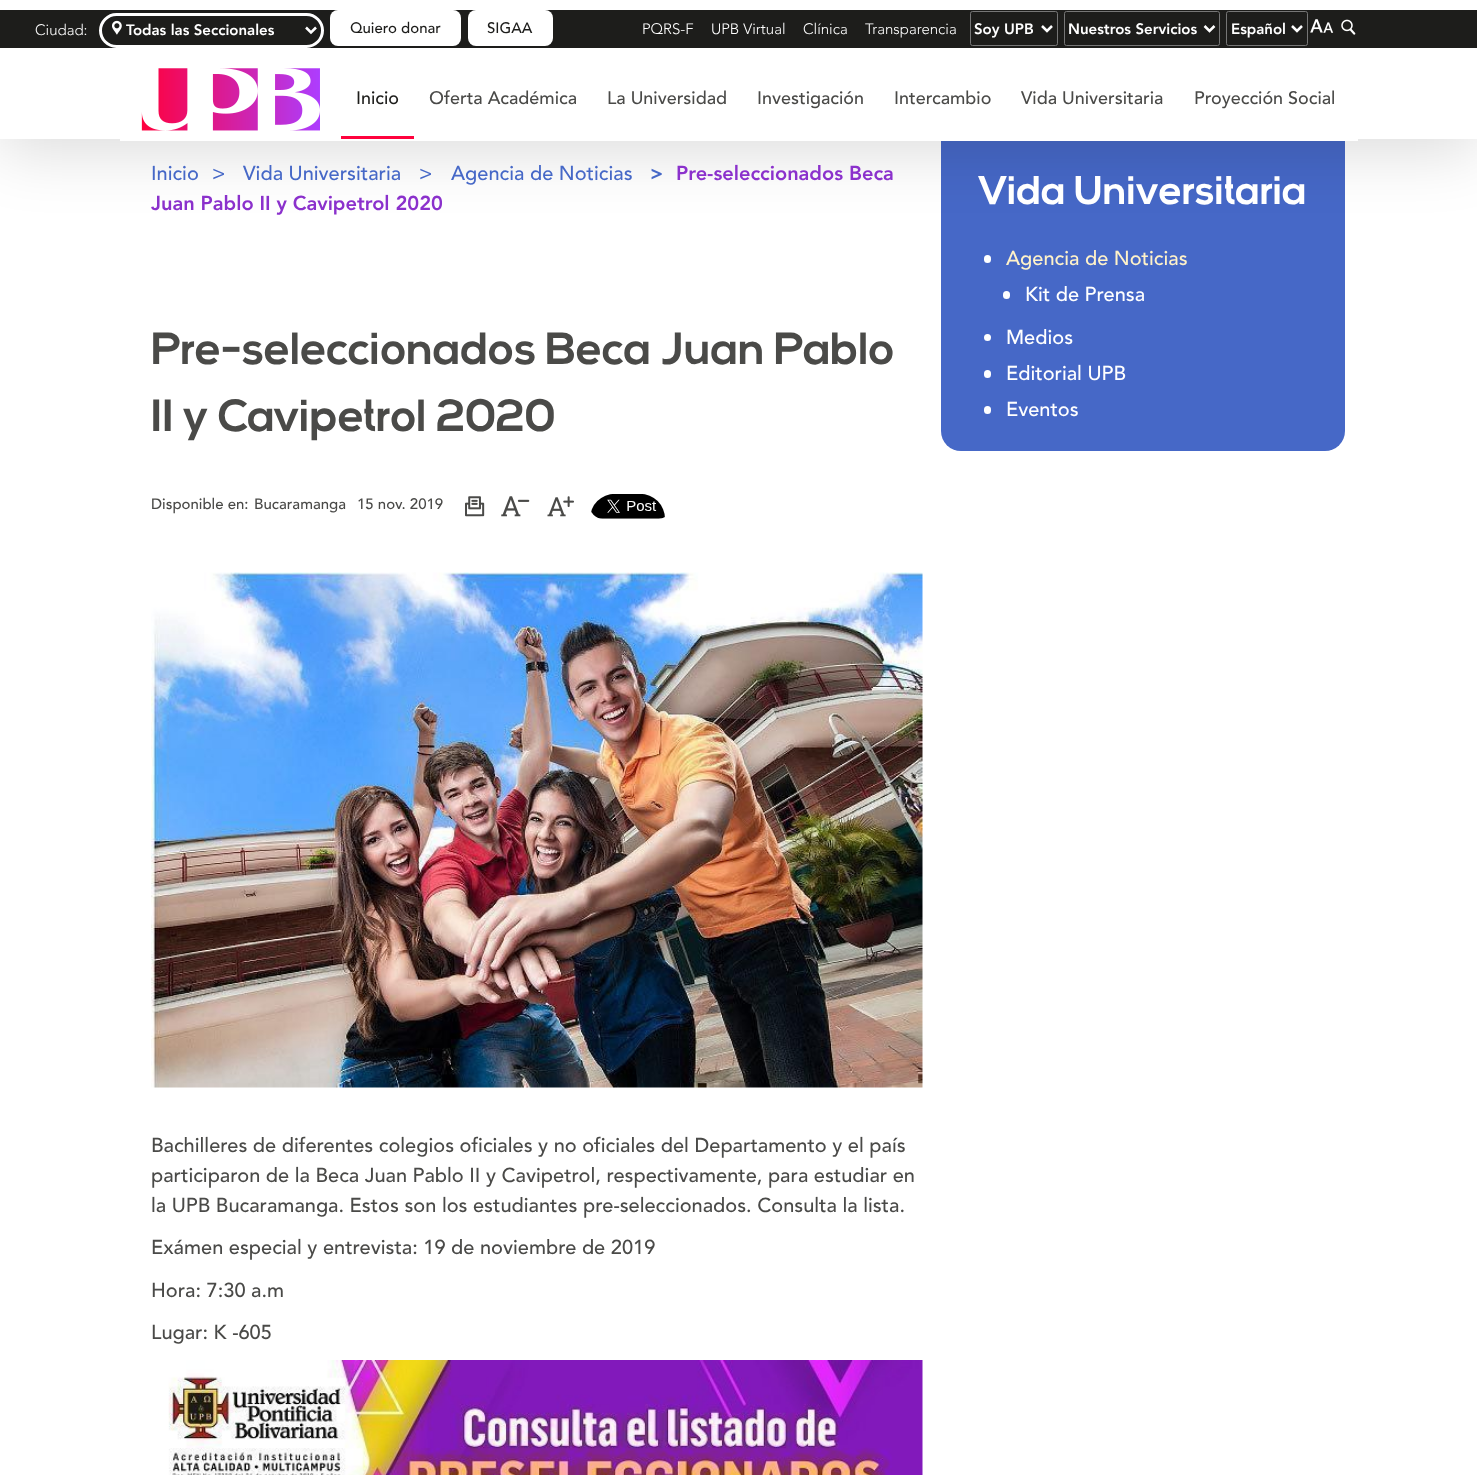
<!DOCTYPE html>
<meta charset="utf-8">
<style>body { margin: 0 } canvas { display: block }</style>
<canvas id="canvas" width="1477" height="1475"></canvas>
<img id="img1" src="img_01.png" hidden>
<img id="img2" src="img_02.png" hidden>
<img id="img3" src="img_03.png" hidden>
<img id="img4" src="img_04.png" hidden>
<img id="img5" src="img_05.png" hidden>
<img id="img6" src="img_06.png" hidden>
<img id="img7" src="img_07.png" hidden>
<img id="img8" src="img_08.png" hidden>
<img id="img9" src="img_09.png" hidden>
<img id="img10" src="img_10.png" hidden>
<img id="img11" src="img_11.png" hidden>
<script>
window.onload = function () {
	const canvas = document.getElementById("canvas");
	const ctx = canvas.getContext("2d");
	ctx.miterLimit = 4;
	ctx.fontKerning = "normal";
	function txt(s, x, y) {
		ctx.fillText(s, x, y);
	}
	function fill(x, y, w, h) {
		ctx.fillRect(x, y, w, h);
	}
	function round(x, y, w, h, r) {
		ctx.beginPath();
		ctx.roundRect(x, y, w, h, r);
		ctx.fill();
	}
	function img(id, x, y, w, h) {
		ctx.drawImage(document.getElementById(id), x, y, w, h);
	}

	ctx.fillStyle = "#FFFFFF";
	fill(0, 0, 1477, 1475);
	ctx.fillStyle = "#4668C7";
	ctx.beginPath();
	ctx.roundRect(941, 139, 404, 312, [0, 0, 20, 20]);
	ctx.fill();
	ctx.fillStyle = "rgba(0, 0, 0, 0.14)";
	ctx.filter = "blur(31px)";
	ctx.beginPath();
	ctx.rect(0, 13, 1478, 138);
	ctx.fill();
	ctx.filter = "none";
	ctx.fillStyle = "#FFFFFF";
	fill(0, 0, 1477, 139);
	ctx.fillStyle = "#1D1D1B";
	fill(0, 10, 1477, 38);
	ctx.beginPath();
	ctx.roundRect(100.5, 14.5, 222, 32, 16);
	ctx.strokeStyle = "#FFFFFF";
	ctx.lineWidth = 3;
	ctx.stroke();
	img("img1", 112, 20, 10, 15);
	ctx.beginPath();
	ctx.moveTo(306, 27.5);
	ctx.lineTo(311, 32.5);
	ctx.lineTo(316, 27.5);
	ctx.lineWidth = 2.5;
	ctx.stroke();
	ctx.fillStyle = "#FFFFFF";
	round(330, 10, 131, 36, 8);
	round(468, 10, 85, 36, 8);
	ctx.beginPath();
	ctx.roundRect(970.5, 11.5, 87, 34, 2);
	ctx.strokeStyle = "#767676";
	ctx.lineWidth = 1;
	ctx.stroke();
	ctx.beginPath();
	ctx.moveTo(1042, 26);
	ctx.lineTo(1047, 31);
	ctx.lineTo(1052, 26);
	ctx.strokeStyle = "#FFFFFF";
	ctx.lineWidth = 2.5;
	ctx.stroke();
	ctx.beginPath();
	ctx.roundRect(1064.5, 11.5, 155, 34, 2);
	ctx.strokeStyle = "#767676";
	ctx.lineWidth = 1;
	ctx.stroke();
	ctx.beginPath();
	ctx.moveTo(1204.5, 26);
	ctx.lineTo(1209.5, 31);
	ctx.lineTo(1214.5, 26);
	ctx.strokeStyle = "#FFFFFF";
	ctx.lineWidth = 2.5;
	ctx.stroke();
	ctx.beginPath();
	ctx.roundRect(1226.5, 11.5, 81, 34, 2);
	ctx.strokeStyle = "#767676";
	ctx.lineWidth = 1;
	ctx.stroke();
	ctx.beginPath();
	ctx.moveTo(1292, 26);
	ctx.lineTo(1297, 31);
	ctx.lineTo(1302, 26);
	ctx.strokeStyle = "#FFFFFF";
	ctx.lineWidth = 2.5;
	ctx.stroke();
	img("img2", 1310, 19, 13, 14);
	img("img3", 1323, 22, 11, 11);
	img("img4", 1341, 19, 15, 16);
	fill(120, 139, 1238, 2);
	img("img5", 141, 68, 179, 63);
	ctx.fillStyle = "#FF023D";
	fill(341, 136, 73, 3);
	ctx.fillStyle = "#FFFFFF";
	round(984, 255, 7, 8, 3.5);
	round(1003, 291, 7, 8, 3.5);
	ctx.beginPath();
	ctx.arc(987.5, 337.5, 3.5, 0, Math.PI * 2);
	ctx.fill();
	round(984, 370, 7, 8, 3.5);
	round(984, 406, 7, 8, 3.5);
	img("img6", 465, 496, 20, 21);
	img("img7", 501, 496, 29, 21);
	img("img8", 547, 496, 27, 21);
	img("img9", 591, 494, 74, 25);
	img("img10", 151, 572, 772, 516);
	img("img11", 168, 1360, 755, 115);
	ctx.font = "300 15px Avenir";
	txt("Ciudad:", 35, 35);
	ctx.font = "900 15px Avenir";
	txt("Todas las Seccionales", 126, 35);
	ctx.font = "500 15px Avenir";
	ctx.fillStyle = "#1D1D1B";
	txt("Quiero donar", 350, 33);
	txt("SIGAA", 487, 33);
	ctx.font = "300 15px Avenir";
	ctx.fillStyle = "#FFFFFF";
	txt("PQRS-F", 642, 34);
	txt("UPB Virtual", 711, 34);
	txt("Clínica", 803, 34);
	txt("Transparencia", 865, 34);
	ctx.font = "900 15px Avenir";
	txt("Soy UPB", 974, 34);
	txt("Nuestros Servicios", 1068, 34);
	txt("Español", 1231, 34);
	ctx.font = "500 18px Avenir";
	ctx.fillStyle = "#1D1D1B";
	txt("Inicio", 356, 104);
	ctx.fillStyle = "#4A4A48";
	txt("Oferta Académica", 429, 104);
	txt("La Universidad", 607, 104);
	txt("Investigación", 757, 104);
	txt("Intercambio", 894, 104);
	txt("Vida Universitaria", 1021, 104);
	txt("Proyección Social", 1194, 104);
	ctx.font = "500 20px Avenir";
	ctx.fillStyle = "#4668C7";
	txt("Inicio", 151, 180);
	txt(">", 212, 180);
	txt("Vida Universitaria", 243, 180);
	txt(">", 419, 180);
	txt("Agencia de Noticias", 451, 180);
	ctx.font = "900 20px Avenir";
	txt(">", 650, 180);
	ctx.fillStyle = "#8B31CC";
	txt("Pre-seleccionados Beca", 676, 180);
	txt("Juan Pablo II y Cavipetrol 2020", 151, 210);
	ctx.font = "bold 40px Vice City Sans";
	ctx.fillStyle = "#FFFFFF";
	txt("Vida Universitaria", 978, 204);
	ctx.font = "500 20px Avenir";
	ctx.fillStyle = "#FFF2C9";
	txt("Agencia de Noticias", 1006, 265);
	ctx.fillStyle = "#FFFFFF";
	txt("Kit de Prensa", 1025, 301);
	txt("Medios", 1006, 344);
	txt("Editorial UPB", 1006, 380);
	txt("Eventos", 1006, 416);
	ctx.font = "bold 45px Vice City Sans";
	ctx.fillStyle = "#4A4A48";
	txt("Pre-seleccionados Beca Juan Pablo", 151, 364);
	txt("II y Cavipetrol 2020", 151, 431);
	ctx.font = "500 15px Avenir";
	txt("Disponible en:", 151, 509);
	txt("Bucaramanga", 254, 509);
	txt("15 nov. 2019", 357, 509);
	ctx.font = "500 20px Avenir";
	txt("Bachilleres de diferentes colegios oficiales y no oficiales del Departamento y el país", 151, 1152);
	txt("participaron de la Beca Juan Pablo II y Cavipetrol, respectivamente, para estudiar en", 151, 1182);
	txt("la UPB Bucaramanga. Estos son los estudiantes pre-seleccionados. Consulta la lista.", 151, 1212);
	txt("Exámen especial y entrevista: 19 de noviembre de 2019", 151, 1254);
	txt("Hora: 7:30 a.m", 151, 1297);
	txt("Lugar: K -605", 151, 1339);
};
</script>
